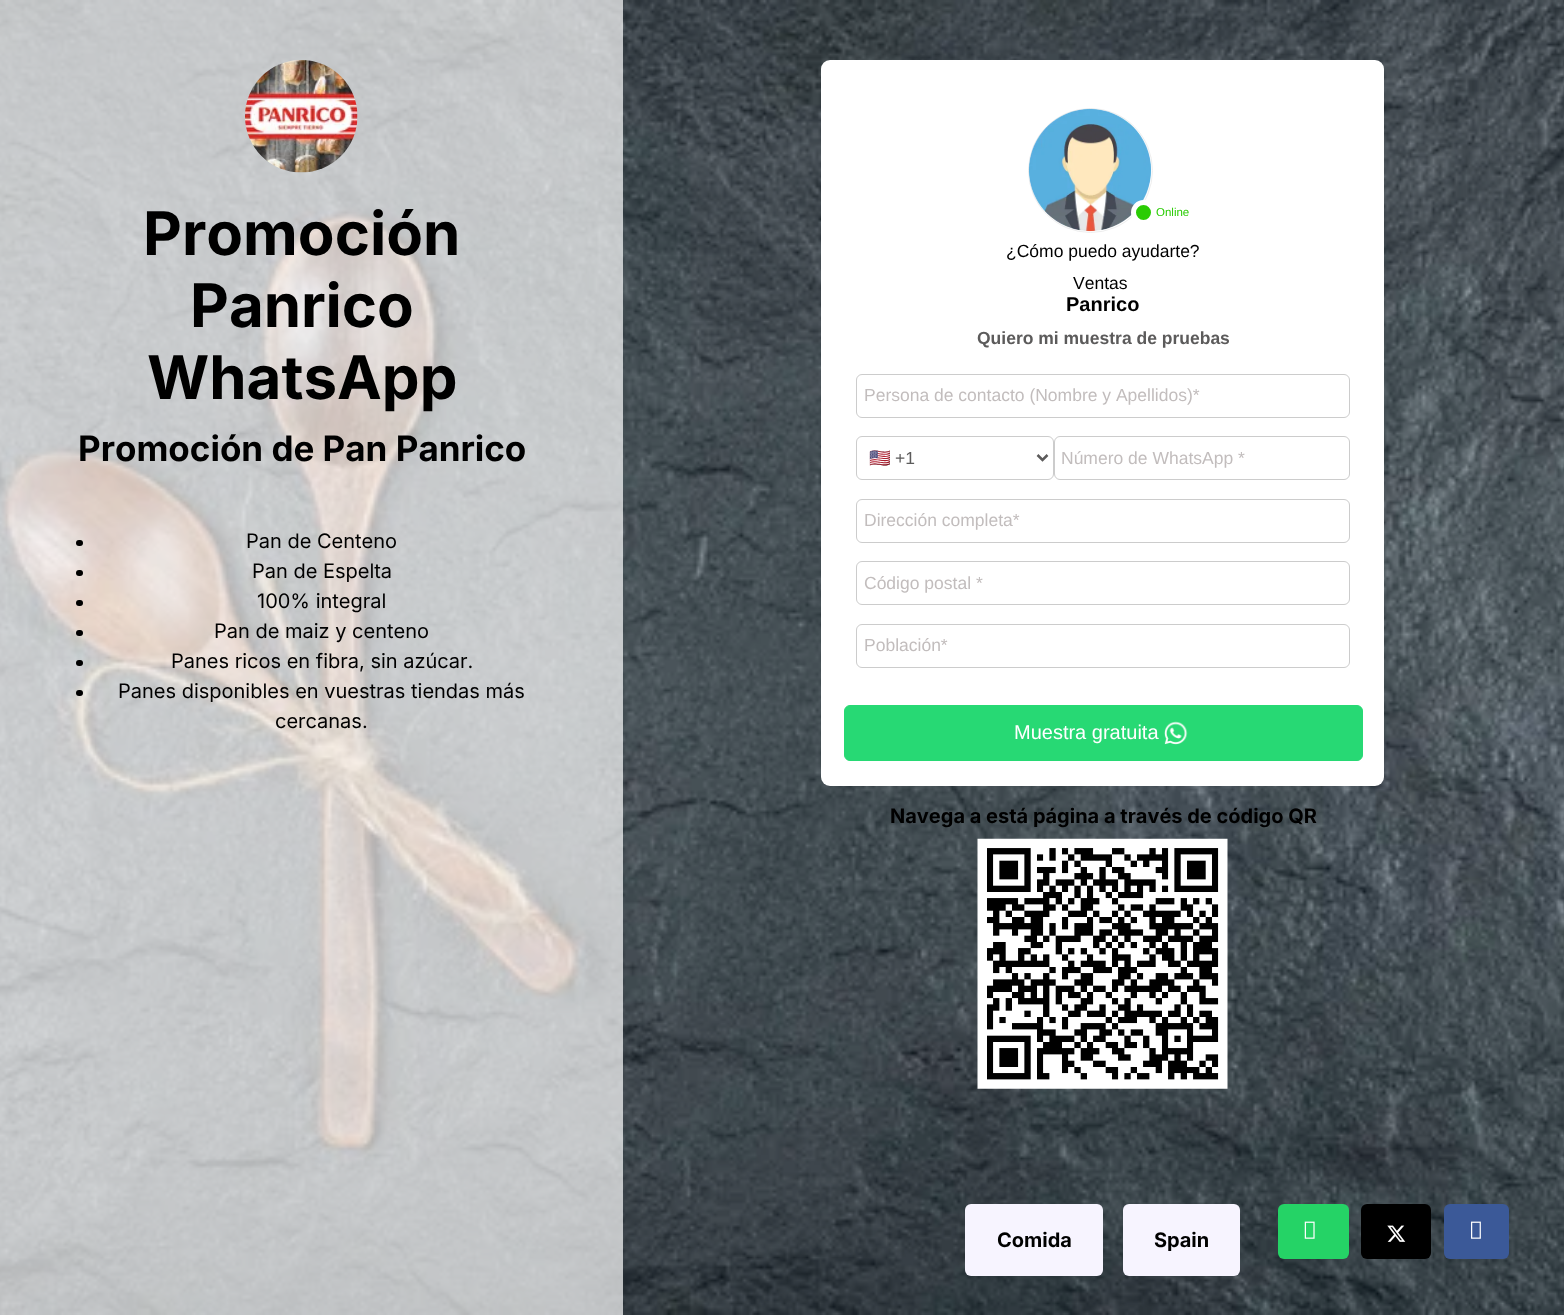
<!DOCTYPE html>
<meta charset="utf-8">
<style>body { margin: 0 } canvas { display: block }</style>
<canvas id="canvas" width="1564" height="1315"></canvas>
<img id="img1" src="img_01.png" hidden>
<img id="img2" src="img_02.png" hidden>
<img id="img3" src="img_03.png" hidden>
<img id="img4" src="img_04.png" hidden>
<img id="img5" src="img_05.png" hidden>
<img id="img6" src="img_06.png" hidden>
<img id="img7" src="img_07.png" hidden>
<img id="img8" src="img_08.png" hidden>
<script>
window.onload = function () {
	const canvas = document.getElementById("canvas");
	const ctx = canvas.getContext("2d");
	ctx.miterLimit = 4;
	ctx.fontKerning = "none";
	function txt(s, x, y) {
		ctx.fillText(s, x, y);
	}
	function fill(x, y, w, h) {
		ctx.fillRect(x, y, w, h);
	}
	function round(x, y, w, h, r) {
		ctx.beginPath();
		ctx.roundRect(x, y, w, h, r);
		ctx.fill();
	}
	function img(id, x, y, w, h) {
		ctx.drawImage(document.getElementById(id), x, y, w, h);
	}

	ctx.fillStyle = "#FFFFFF";
	fill(0, 0, 1564, 1315);
	img("img1", 0, 0, 1564, 1315);
	ctx.fillStyle = "rgba(255, 255, 255, 0.7)";
	fill(0, 0, 623, 1315);
	img("img2", 245, 60, 113, 113);
	ctx.fillStyle = "#000000";
	round(76, 540, 7, 6, 3);
	round(76, 570, 7, 6, 3);
	round(76, 600, 7, 6, 3);
	round(76, 630, 7, 6, 3);
	round(76, 660, 7, 6, 3);
	round(76, 690, 7, 6, 3);
	ctx.fillStyle = "#FFFFFF";
	round(821, 60, 563, 726, 9);
	ctx.beginPath();
	ctx.arc(1090.5, 170.5, 62, 0, Math.PI * 2);
	ctx.strokeStyle = "#EEEEEE";
	ctx.stroke();
	img("img3", 1028, 108, 124, 124);
	ctx.fillStyle = "#2ACC04";
	ctx.beginPath();
	ctx.arc(1143.5, 212.5, 10, 0, Math.PI * 2);
	ctx.fill();
	ctx.strokeStyle = "#FFFFFF";
	ctx.lineWidth = 5;
	ctx.stroke();
	ctx.beginPath();
	ctx.roundRect(856.5, 374.5, 493, 43, 5.5);
	ctx.strokeStyle = "#CCCCCC";
	ctx.lineWidth = 1;
	ctx.stroke();
	ctx.beginPath();
	ctx.roundRect(856.5, 436.5, 197, 43, 5.5);
	ctx.stroke();
	ctx.beginPath();
	ctx.moveTo(1037.5, 455);
	ctx.lineTo(1042.5, 460);
	ctx.lineTo(1047.5, 455);
	ctx.strokeStyle = "#5C5B5B";
	ctx.lineWidth = 2.5;
	ctx.stroke();
	ctx.beginPath();
	ctx.roundRect(1054.5, 436.5, 295, 43, 5.5);
	ctx.strokeStyle = "#CCCCCC";
	ctx.lineWidth = 1;
	ctx.stroke();
	ctx.beginPath();
	ctx.roundRect(856.5, 499.5, 493, 43, 5.5);
	ctx.stroke();
	ctx.beginPath();
	ctx.roundRect(856.5, 561.5, 493, 43, 5.5);
	ctx.stroke();
	ctx.beginPath();
	ctx.roundRect(856.5, 624.5, 493, 43, 5.5);
	ctx.stroke();
	ctx.fillStyle = "#27D974";
	ctx.beginPath();
	ctx.roundRect(844.5, 705.5, 518, 55, 5.5);
	ctx.fill();
	ctx.strokeStyle = "#27D974";
	ctx.stroke();
	img("img4", 1164, 721, 24, 24);
	img("img5", 977, 838, 251, 251);
	ctx.fillStyle = "#F7F4FF";
	round(965, 1204, 138, 72, 6);
	round(1123, 1204, 117, 72, 6);
	ctx.fillStyle = "#25D366";
	round(1278, 1204, 71, 55, 6);
	img("img6", 1304, 1221, 11, 18);
	ctx.fillStyle = "#000000";
	round(1361, 1204, 70, 55, 6);
	img("img7", 1387, 1225, 19, 17);
	ctx.fillStyle = "#3B5998";
	round(1444, 1204, 65, 55, 6);
	img("img8", 1471, 1221, 10, 18);
	ctx.font = "bold 60px Inter";
	ctx.fillStyle = "#000000";
	txt("Promoción", 143, 255);
	txt("Panrico", 190, 327);
	txt("WhatsApp", 147, 399);
	ctx.font = "bold 35px Inter";
	txt("Promoción de Pan Panrico", 78, 461);
	ctx.font = "20px Inter";
	txt("Pan de Centeno", 246, 548);
	txt("Pan de Espelta", 252, 578);
	txt("100% integral", 257, 608);
	txt("Pan de maiz y centeno", 214, 638);
	txt("Panes ricos en fibra, sin azúcar.", 171, 668);
	txt("Panes disponibles en vuestras tiendas más", 118, 698);
	txt("cercanas.", 275, 728);
	ctx.font = "11.5px Liberation Sans";
	ctx.fillStyle = "#2ACC04";
	txt("Online", 1156, 216);
	ctx.font = "17.5px Liberation Sans";
	ctx.fillStyle = "#000000";
	txt("¿Cómo puedo ayudarte?", 1006, 257);
	txt("Ventas", 1073, 289);
	ctx.font = "bold 20px Liberation Sans";
	txt("Panrico", 1066, 311);
	ctx.font = "bold 17.5px Liberation Sans";
	ctx.fillStyle = "#5C5B5B";
	txt("Quiero mi muestra de pruebas", 977, 344);
	ctx.font = "17.5px Liberation Sans";
	ctx.fillStyle = "#C2BDBD";
	txt("Persona de contacto (Nombre y Apellidos)*", 864, 401);
	ctx.save();
	ctx.beginPath();
	ctx.rect(869, 446, 157, 23);
	ctx.clip();
	ctx.font = "17.5px Noto Color Emoji";
	ctx.fillStyle = "#5C5B5B";
	txt("🇺🇸", 869, 464);
	ctx.restore();
	ctx.fillStyle = "#5C5B5B";
	txt("+1", 895, 464);
	ctx.fillStyle = "#C2BDBD";
	txt("Número de WhatsApp *", 1061, 464);
	txt("Dirección completa*", 864, 526);
	txt("Código postal *", 864, 589);
	txt("Población*", 864, 651);
	ctx.font = "20px Liberation Sans";
	ctx.fillStyle = "#FFFFFF";
	txt("Muestra gratuita", 1014, 739);
	ctx.font = "bold 20px Inter";
	ctx.fillStyle = "#000000";
	txt("Navega a está página a través de código QR", 890, 823);
	txt("Comida", 997, 1247);
	txt("Spain", 1154, 1247);
};
</script>
